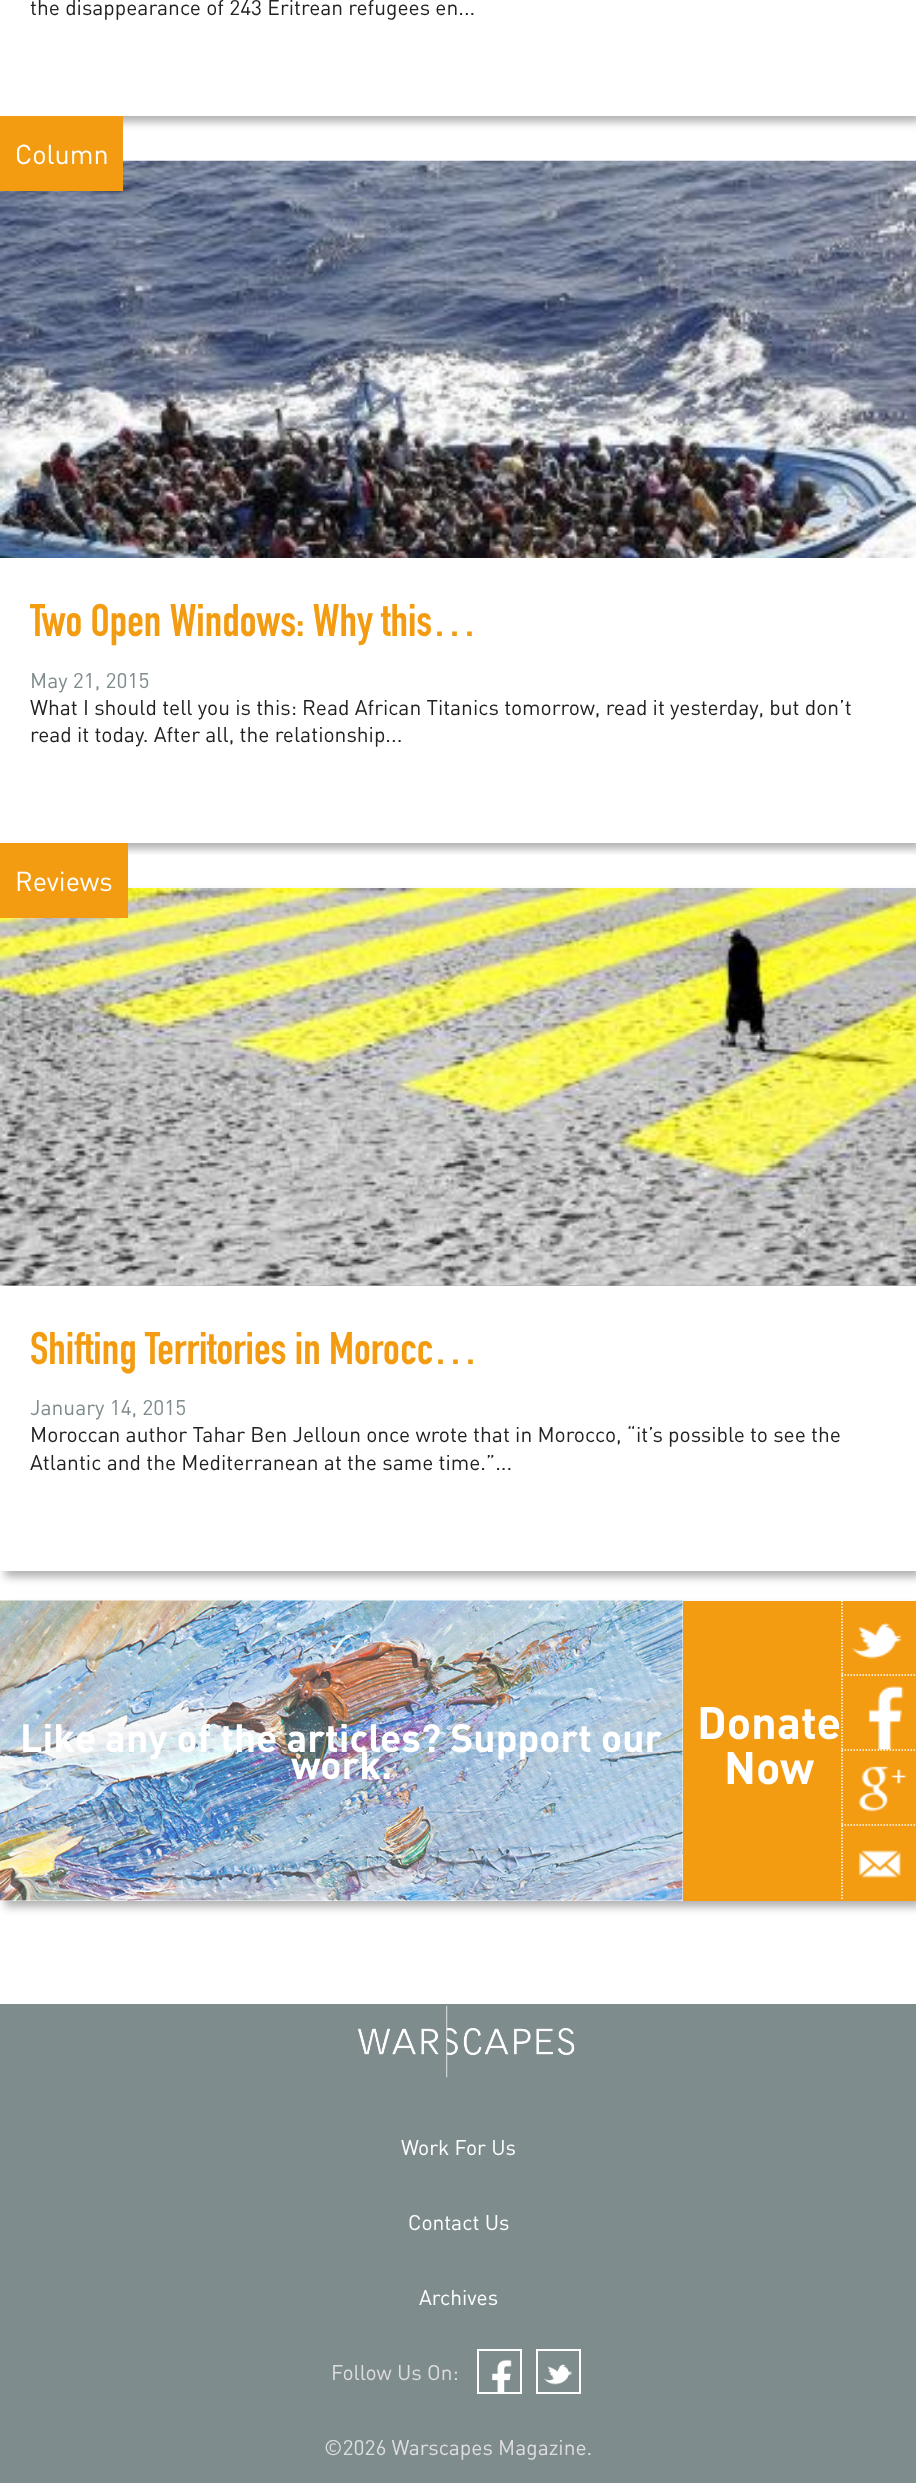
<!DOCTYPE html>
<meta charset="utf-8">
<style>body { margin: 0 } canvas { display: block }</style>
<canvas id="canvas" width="916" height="2483"></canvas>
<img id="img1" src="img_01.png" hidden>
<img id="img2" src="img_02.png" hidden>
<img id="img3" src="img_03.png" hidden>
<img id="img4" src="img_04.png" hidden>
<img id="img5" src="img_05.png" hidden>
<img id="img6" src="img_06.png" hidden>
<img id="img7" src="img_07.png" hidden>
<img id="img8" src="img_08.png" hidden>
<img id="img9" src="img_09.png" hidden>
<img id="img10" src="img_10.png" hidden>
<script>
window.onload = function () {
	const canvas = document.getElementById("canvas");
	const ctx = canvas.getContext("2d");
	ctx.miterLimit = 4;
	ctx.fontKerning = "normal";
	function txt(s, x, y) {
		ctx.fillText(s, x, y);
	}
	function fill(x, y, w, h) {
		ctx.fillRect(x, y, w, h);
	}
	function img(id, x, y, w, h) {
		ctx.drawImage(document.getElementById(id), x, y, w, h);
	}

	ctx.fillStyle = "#FFFFFF";
	fill(0, 0, 916, 2483);
	ctx.fillStyle = "rgba(0, 0, 0, 0.3)";
	ctx.filter = "blur(4px)";
	ctx.beginPath();
	ctx.rect(5, -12, 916, 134);
	ctx.fill();
	ctx.filter = "none";
	ctx.fillStyle = "#FFFFFF";
	fill(0, 0, 916, 116);
	ctx.save();
	ctx.beginPath();
	ctx.rect(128, 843, 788, 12);
	ctx.clip();
	ctx.fillStyle = "rgba(0, 0, 0, 0.3)";
	ctx.filter = "blur(4px)";
	ctx.beginPath();
	ctx.rect(5, 167, 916, 682);
	ctx.fill();
	ctx.filter = "none";
	ctx.restore();
	img("img1", 0, 160, 916, 398);
	ctx.fillStyle = "#F39C12";
	fill(0, 116, 123, 75);
	ctx.fillStyle = "rgba(0, 0, 0, 0.3)";
	ctx.filter = "blur(4px)";
	ctx.beginPath();
	ctx.rect(5, 894, 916, 683);
	ctx.fill();
	ctx.filter = "none";
	img("img2", 0, 888, 916, 398);
	ctx.fillStyle = "#F39C12";
	fill(0, 843, 128, 75);
	ctx.fillStyle = "#FFFFFF";
	fill(0, 1286, 916, 285);
	ctx.save();
	ctx.beginPath();
	ctx.moveTo(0, 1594);
	ctx.lineTo(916, 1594);
	ctx.lineTo(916, 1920);
	ctx.lineTo(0, 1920);
	ctx.closePath();
	ctx.moveTo(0, 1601);
	ctx.lineTo(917, 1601);
	ctx.lineTo(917, 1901);
	ctx.lineTo(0, 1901);
	ctx.closePath();
	ctx.clip("evenodd");
	ctx.fillStyle = "rgba(0, 0, 0, 0.3)";
	ctx.filter = "blur(4px)";
	ctx.beginPath();
	ctx.rect(5, 1607, 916, 300);
	ctx.fill();
	ctx.filter = "none";
	ctx.restore();
	img("img3", 0, 1600, 683, 301);
	ctx.fillStyle = "#F39C12";
	fill(683, 1601, 233, 300);
	img("img4", 851, 1622, 51, 37);
	ctx.beginPath();
	ctx.moveTo(841.5, 1675);
	ctx.lineTo(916.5, 1675);
	ctx.strokeStyle = "#FFFFFF";
	ctx.lineWidth = 1.5;
	ctx.setLineDash([1.5, 1.5]);
	ctx.stroke();
	ctx.beginPath();
	ctx.moveTo(842, 1600.5);
	ctx.lineTo(842, 1675.5);
	ctx.stroke();
	img("img5", 868, 1685, 36, 65);
	ctx.beginPath();
	ctx.moveTo(841.5, 1750);
	ctx.lineTo(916.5, 1750);
	ctx.stroke();
	ctx.beginPath();
	ctx.moveTo(842, 1675.5);
	ctx.lineTo(842, 1750.5);
	ctx.stroke();
	img("img6", 858, 1766, 49, 46);
	ctx.beginPath();
	ctx.moveTo(841.5, 1825);
	ctx.lineTo(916.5, 1825);
	ctx.stroke();
	ctx.beginPath();
	ctx.moveTo(842, 1750.5);
	ctx.lineTo(842, 1825.5);
	ctx.stroke();
	img("img7", 858, 1850, 43, 28);
	ctx.beginPath();
	ctx.moveTo(842, 1825.5);
	ctx.lineTo(842, 1900.5);
	ctx.stroke();
	ctx.fillStyle = "#7F8C8D";
	fill(0, 2004, 916, 479);
	img("img8", 358, 2005, 217, 73);
	img("img9", 491, 2359, 21, 33);
	ctx.lineWidth = 2;
	ctx.setLineDash([]);
	ctx.strokeRect(478, 2350, 43, 43);
	img("img10", 543, 2364, 30, 21);
	ctx.strokeRect(537, 2350, 43, 43);
	ctx.font = "21px DIN";
	ctx.fillStyle = "#222222";
	txt("the disappearance of 243 Eritrean refugees en...", 30, 15);
	ctx.font = "27px DIN";
	ctx.fillStyle = "#FFFFFF";
	txt("Column", 15, 164);
	ctx.save();
	ctx.beginPath();
	ctx.rect(30, 603, 450, 50);
	ctx.clip();
	ctx.font = "45px 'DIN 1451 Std'";
	ctx.fillStyle = "#F39C12";
	txt("Two Open Windows: Why this…", 30, 636);
	ctx.restore();
	ctx.font = "21px DIN";
	ctx.fillStyle = "#7F8C8D";
	txt("May 21, 2015", 30, 688);
	ctx.fillStyle = "#222222";
	txt("What I should tell you is this: Read African Titanics tomorrow, read it yesterday, but don’t", 30, 715);
	txt("read it today. After all, the relationship...", 30, 742);
	ctx.font = "27px DIN";
	ctx.fillStyle = "#FFFFFF";
	txt("Reviews", 15, 891);
	ctx.font = "45px 'DIN 1451 Std'";
	ctx.fillStyle = "#F39C12";
	txt("Shifting Territories in Morocc…", 30, 1364);
	ctx.font = "21px DIN";
	ctx.fillStyle = "#7F8C8D";
	txt("January 14, 2015", 30, 1415);
	ctx.fillStyle = "#222222";
	txt("Moroccan author Tahar Ben Jelloun once wrote that in Morocco, “it’s possible to see the", 30, 1442);
	txt("Atlantic and the Mediterranean at the same time.”...", 30, 1470);
	ctx.font = "bold 39px DIN";
	ctx.fillStyle = "#FFFFFF";
	txt("Like any of the articles? Support our", 20, 1752);
	txt("work.", 291, 1779);
	ctx.font = "bold 45px DIN";
	txt("Donate", 697, 1739);
	txt("Now", 724, 1784);
	ctx.font = "21px DIN";
	txt("Work For Us", 401, 2155);
	txt("Contact Us", 408, 2230);
	txt("Archives", 419, 2305);
	ctx.fillStyle = "#DDDDDD";
	txt("Follow Us On:", 331, 2380);
	txt("©2026 Warscapes Magazine.", 324, 2455);
};
</script>
